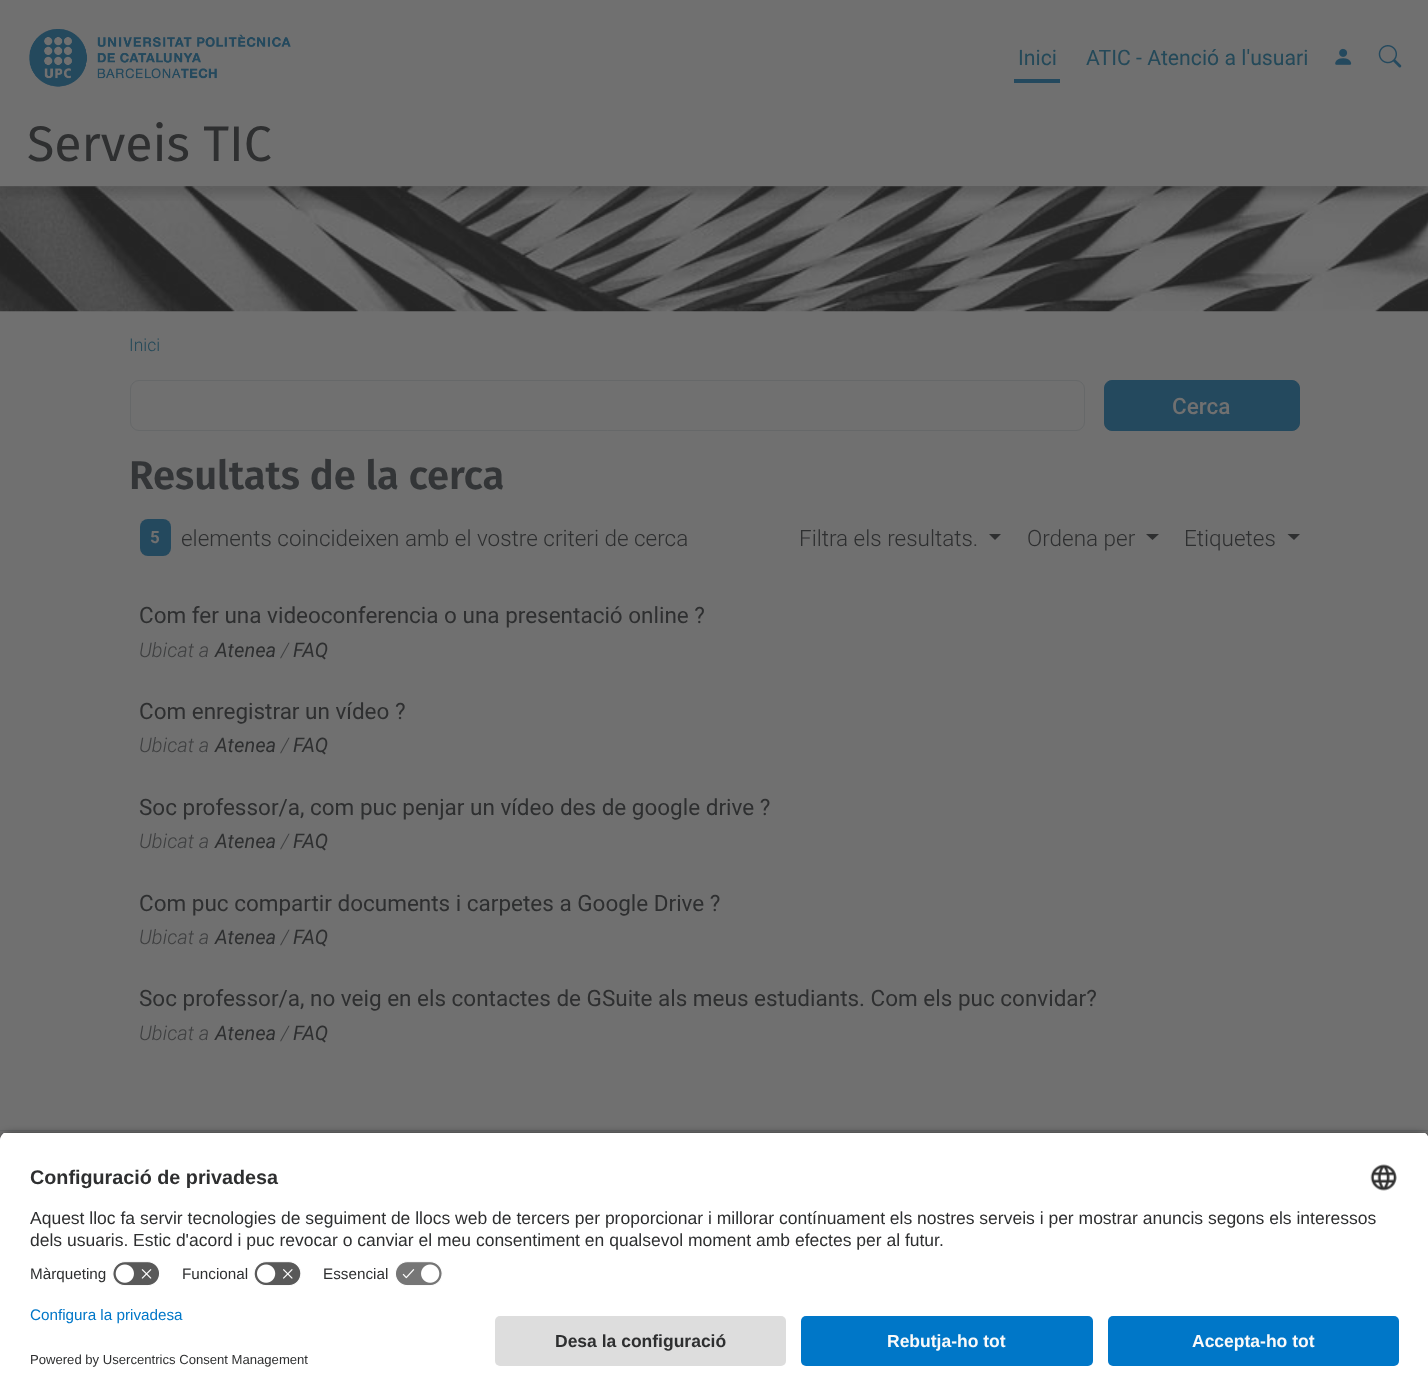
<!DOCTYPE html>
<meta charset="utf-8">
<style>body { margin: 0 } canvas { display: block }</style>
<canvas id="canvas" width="1428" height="1396"></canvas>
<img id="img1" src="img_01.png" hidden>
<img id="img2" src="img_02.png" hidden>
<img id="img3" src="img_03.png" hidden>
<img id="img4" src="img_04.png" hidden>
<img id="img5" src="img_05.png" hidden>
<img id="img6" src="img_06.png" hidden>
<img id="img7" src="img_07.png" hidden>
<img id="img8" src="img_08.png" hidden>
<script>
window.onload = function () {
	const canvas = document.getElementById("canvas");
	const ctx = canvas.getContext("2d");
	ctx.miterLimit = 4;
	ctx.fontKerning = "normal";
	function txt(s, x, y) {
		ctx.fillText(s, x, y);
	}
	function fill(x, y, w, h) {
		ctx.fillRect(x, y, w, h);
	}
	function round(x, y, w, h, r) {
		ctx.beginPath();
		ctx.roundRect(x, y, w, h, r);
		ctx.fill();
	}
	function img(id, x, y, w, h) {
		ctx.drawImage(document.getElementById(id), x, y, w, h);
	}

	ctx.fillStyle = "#707070";
	fill(0, 0, 1428, 1396);
	img("img1", 29, 29, 262, 58);
	ctx.fillStyle = "#24495E";
	fill(1014, 79, 46, 4);
	img("img2", 1335, 48, 17, 17);
	img("img3", 1378, 45, 24, 23);
	img("img4", 0, 186, 1428, 126);
	ctx.save();
	ctx.beginPath();
	ctx.rect(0, 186, 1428, 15);
	ctx.clip();
	ctx.fillStyle = "rgba(36, 36, 36, 0.2)";
	ctx.filter = "blur(5px)";
	ctx.beginPath();
	ctx.rect(0, 124, 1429, 71);
	ctx.fill();
	ctx.filter = "none";
	ctx.restore();
	ctx.beginPath();
	ctx.roundRect(130.5, 380.5, 954, 50, 8.5);
	ctx.strokeStyle = "#666869";
	ctx.stroke();
	ctx.beginPath();
	ctx.roundRect(1104.5, 380.5, 195, 50, 7.5);
	ctx.fill();
	ctx.strokeStyle = "#24495E";
	ctx.stroke();
	round(140, 519, 31, 37, 8);
	ctx.fillStyle = "#2E2F30";
	ctx.beginPath();
	ctx.moveTo(989, 534);
	ctx.lineTo(1001, 534);
	ctx.lineTo(995, 540);
	ctx.closePath();
	ctx.fill();
	ctx.beginPath();
	ctx.moveTo(1146, 534);
	ctx.lineTo(1159, 534);
	ctx.lineTo(1152.5, 540);
	ctx.closePath();
	ctx.fill();
	ctx.beginPath();
	ctx.moveTo(1287.5, 534);
	ctx.lineTo(1300, 534);
	ctx.lineTo(1294, 540);
	ctx.closePath();
	ctx.fill();
	ctx.fillStyle = "#666869";
	fill(0, 1130, 1428, 1);
	ctx.fillStyle = "rgba(0, 0, 0, 0.8)";
	ctx.filter = "blur(4.5px)";
	ctx.beginPath();
	ctx.roundRect(0, 1135, 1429, 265, 10);
	ctx.fill();
	ctx.filter = "none";
	ctx.save();
	ctx.beginPath();
	ctx.moveTo(10, 1131);
	ctx.lineTo(1419, 1131);
	ctx.bezierCurveTo(1424.5, 1131, 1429, 1135.5, 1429, 1141);
	ctx.lineTo(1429, 1306);
	ctx.lineTo(0, 1306);
	ctx.lineTo(0, 1141);
	ctx.bezierCurveTo(0, 1135.5, 4.5, 1131, 10, 1131);
	ctx.closePath();
	ctx.clip();
	ctx.fillStyle = "#FFFFFF";
	fill(0, 1133, 1428, 173);
	fill(0, 1133, 1428, 123);
	ctx.restore();
	img("img5", 1370, 1164, 27, 27);
	img("img6", 112, 1261, 48, 25);
	img("img7", 254, 1261, 47, 25);
	img("img8", 395, 1261, 48, 25);
	ctx.fillStyle = "#FFFFFF";
	fill(0, 1306, 1428, 90);
	ctx.fillStyle = "#DDDDDD";
	round(495, 1316, 291, 50, 5);
	ctx.fillStyle = "#0077C8";
	round(801, 1316, 292, 50, 5);
	round(1108, 1316, 291, 50, 5);
	ctx.font = "21.25px Roboto";
	ctx.fillStyle = "#244959";
	txt("Inici", 1018, 65);
	txt("ATIC - Atenció a l'usuari", 1086, 65);
	ctx.font = "50px Fira Sans";
	ctx.fillStyle = "#2E2F30";
	txt("Serveis TIC", 27, 161);
	ctx.font = "300 17.5px Roboto";
	ctx.fillStyle = "#244959";
	txt("Inici", 129, 351);
	ctx.font = "500 22.5px Roboto";
	ctx.fillStyle = "#707070";
	txt("Cerca", 1172, 414);
	ctx.font = "600 40px Fira Sans";
	ctx.fillStyle = "#333537";
	txt("Resultats de la cerca", 129, 489);
	ctx.font = "bold 17px Roboto";
	ctx.fillStyle = "#707070";
	txt("5", 150, 543);
	ctx.font = "300 22.5px Roboto";
	ctx.fillStyle = "#2E2F30";
	txt("elements coincideixen amb el vostre criteri de cerca", 181, 546);
	txt("Filtra els resultats.", 799, 546);
	txt("Ordena per", 1027, 546);
	txt("Etiquetes", 1184, 546);
	ctx.font = "22.5px Roboto";
	txt("Com fer una videoconferencia o una presentació online ?", 139, 623);
	ctx.font = "italic 300 20px Roboto";
	ctx.fillStyle = "#3E3F40";
	txt("Ubicat a", 139, 657);
	ctx.font = "italic 20px Roboto";
	ctx.fillStyle = "#2E2F30";
	txt("Atenea", 215, 657);
	ctx.font = "italic 300 20px Roboto";
	ctx.fillStyle = "#3E3F40";
	txt("/", 281, 657);
	ctx.font = "italic 20px Roboto";
	ctx.fillStyle = "#2E2F30";
	txt("FAQ", 293, 657);
	ctx.font = "22.5px Roboto";
	txt("Com enregistrar un vídeo ?", 139, 719);
	ctx.font = "italic 300 20px Roboto";
	ctx.fillStyle = "#3E3F40";
	txt("Ubicat a", 139, 752);
	ctx.font = "italic 20px Roboto";
	ctx.fillStyle = "#2E2F30";
	txt("Atenea", 215, 752);
	ctx.font = "italic 300 20px Roboto";
	ctx.fillStyle = "#3E3F40";
	txt("/", 281, 752);
	ctx.font = "italic 20px Roboto";
	ctx.fillStyle = "#2E2F30";
	txt("FAQ", 293, 752);
	ctx.font = "22.5px Roboto";
	txt("Soc professor/a, com puc penjar un vídeo des de google drive ?", 139, 815);
	ctx.font = "italic 300 20px Roboto";
	ctx.fillStyle = "#3E3F40";
	txt("Ubicat a", 139, 848);
	ctx.font = "italic 20px Roboto";
	ctx.fillStyle = "#2E2F30";
	txt("Atenea", 215, 848);
	ctx.font = "italic 300 20px Roboto";
	ctx.fillStyle = "#3E3F40";
	txt("/", 281, 848);
	ctx.font = "italic 20px Roboto";
	ctx.fillStyle = "#2E2F30";
	txt("FAQ", 293, 848);
	ctx.font = "22.5px Roboto";
	txt("Com puc compartir documents i carpetes a Google Drive ?", 139, 911);
	ctx.font = "italic 300 20px Roboto";
	ctx.fillStyle = "#3E3F40";
	txt("Ubicat a", 139, 944);
	ctx.font = "italic 20px Roboto";
	ctx.fillStyle = "#2E2F30";
	txt("Atenea", 215, 944);
	ctx.font = "italic 300 20px Roboto";
	ctx.fillStyle = "#3E3F40";
	txt("/", 281, 944);
	ctx.font = "italic 20px Roboto";
	ctx.fillStyle = "#2E2F30";
	txt("FAQ", 293, 944);
	ctx.font = "22.5px Roboto";
	txt("Soc professor/a, no veig en els contactes de GSuite als meus estudiants. Com els puc convidar?", 139, 1006);
	ctx.font = "italic 300 20px Roboto";
	ctx.fillStyle = "#3E3F40";
	txt("Ubicat a", 139, 1040);
	ctx.font = "italic 20px Roboto";
	ctx.fillStyle = "#2E2F30";
	txt("Atenea", 215, 1040);
	ctx.font = "italic 300 20px Roboto";
	ctx.fillStyle = "#3E3F40";
	txt("/", 281, 1040);
	ctx.font = "italic 20px Roboto";
	ctx.fillStyle = "#2E2F30";
	txt("FAQ", 293, 1040);
	ctx.font = "bold 19.75px Liberation Sans";
	txt("Configuració de privadesa", 30, 1184);
	ctx.font = "17.5px Liberation Sans";
	txt("Aquest lloc fa servir tecnologies de seguiment de llocs web de tercers per proporcionar i millorar contínuament els nostres serveis i per mostrar anuncis segons els interessos", 30, 1224);
	txt("dels usuaris. Estic d'acord i puc revocar o canviar el meu consentiment en qualsevol moment amb efectes per al futur.", 30, 1246);
	ctx.font = "15.25px Liberation Sans";
	txt("Màrqueting", 30, 1279);
	txt("Funcional", 182, 1279);
	txt("Essencial", 323, 1279);
	ctx.fillStyle = "#0077C8";
	txt("Configura la privadesa", 30, 1320);
	ctx.font = "13.1px Liberation Sans";
	ctx.fillStyle = "#2E2F30";
	txt("Powered by Usercentrics Consent Management", 30, 1364);
	ctx.font = "bold 17.5px Liberation Sans";
	txt("Desa la configuració", 555, 1347);
	ctx.fillStyle = "#FAFAFA";
	txt("Rebutja-ho tot", 887, 1347);
	txt("Accepta-ho tot", 1192, 1347);
};
</script>
